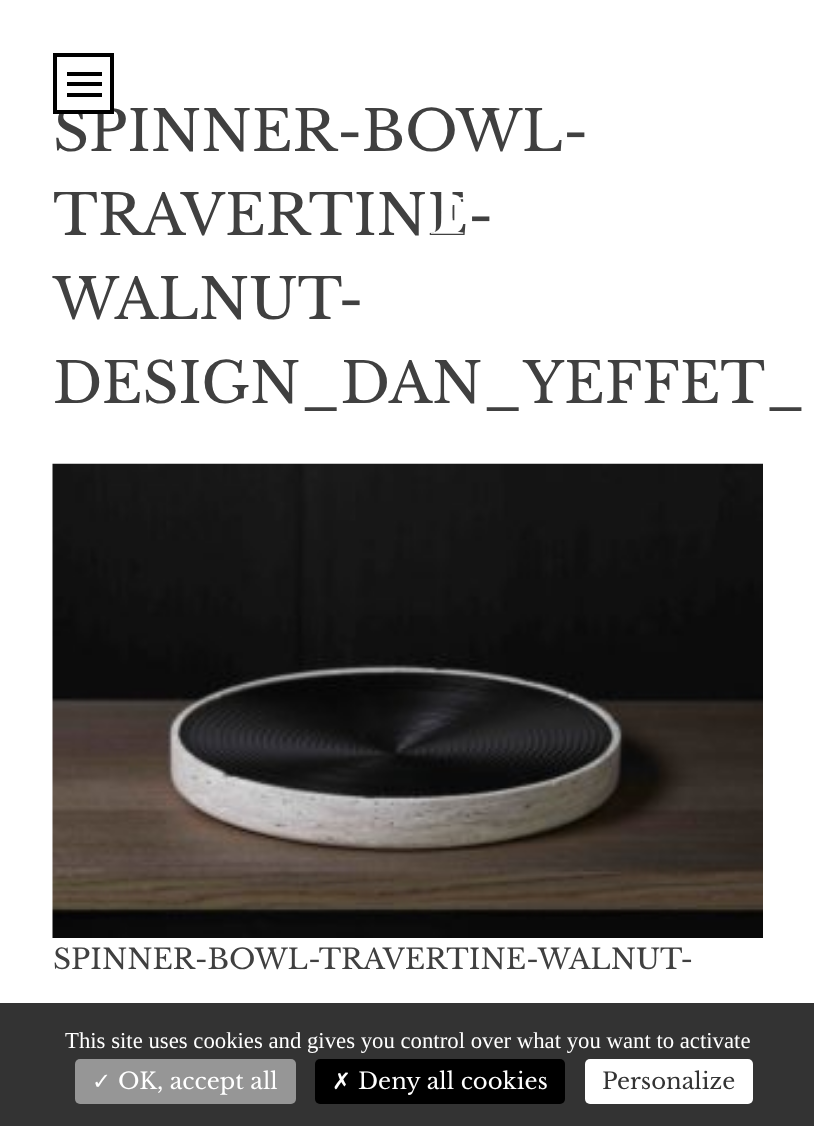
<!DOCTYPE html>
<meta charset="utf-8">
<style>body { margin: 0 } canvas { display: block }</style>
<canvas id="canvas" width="814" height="1126"></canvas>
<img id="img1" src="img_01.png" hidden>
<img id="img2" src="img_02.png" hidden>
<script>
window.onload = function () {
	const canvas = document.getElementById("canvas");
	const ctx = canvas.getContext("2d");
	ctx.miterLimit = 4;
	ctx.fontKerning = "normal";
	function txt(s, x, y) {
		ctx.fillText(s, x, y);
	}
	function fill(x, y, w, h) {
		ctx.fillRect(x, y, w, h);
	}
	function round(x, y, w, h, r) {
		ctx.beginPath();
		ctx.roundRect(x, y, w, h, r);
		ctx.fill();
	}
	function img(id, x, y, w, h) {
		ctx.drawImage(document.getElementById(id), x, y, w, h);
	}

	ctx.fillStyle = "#FFFFFF";
	fill(0, 0, 814, 1126);
	img("img1", 52, 463, 711, 475);
	ctx.fillStyle = "#333333";
	fill(0, 1003, 814, 123);
	ctx.fillStyle = "#969696";
	round(75, 1059, 221, 45, 5);
	ctx.fillStyle = "#000000";
	round(315, 1059, 250, 45, 5);
	ctx.fillStyle = "#FFFFFF";
	round(585, 1059, 168, 45, 5);
	ctx.font = "56px Libre Baskerville";
	ctx.fillStyle = "#404040";
	txt("SPINNER-BOWL-", 53, 151);
	ctx.fillStyle = "#FFFFFF";
	fill(61, 107, 49, 3);
	ctx.strokeStyle = "#000000";
	ctx.lineWidth = 4;
	ctx.strokeRect(55, 55, 57, 57);
	ctx.fillStyle = "#000000";
	fill(67, 93, 35, 4);
	fill(67, 82, 35, 4);
	fill(67, 72, 35, 4);
	ctx.fillStyle = "#404040";
	txt("TRAVERTINE-", 53, 235);
	txt("WALNUT-", 53, 319);
	txt("DESIGN_DAN_YEFFET_", 53, 403);
	ctx.font = "28px Libre Baskerville";
	txt("SPINNER-BOWL-TRAVERTINE-WALNUT-", 53, 969);
	img("img2", 431, 107, 82, 127);
	ctx.font = "22.75px Liberation Serif";
	ctx.fillStyle = "#FFFFFF";
	txt("This site uses cookies and gives you control over what you want to activate", 65, 1048);
	ctx.font = "22.75px DejaVu Sans";
	txt("✓", 92, 1089);
	ctx.font = "22.75px Libre Baskerville";
	txt("OK, accept all", 118, 1089);
	ctx.font = "22.75px DejaVu Sans";
	txt("✗", 332, 1089);
	ctx.font = "22.75px Libre Baskerville";
	txt("Deny all cookies", 358, 1089);
	ctx.fillStyle = "#333333";
	txt("Personalize", 602, 1089);
};
</script>
